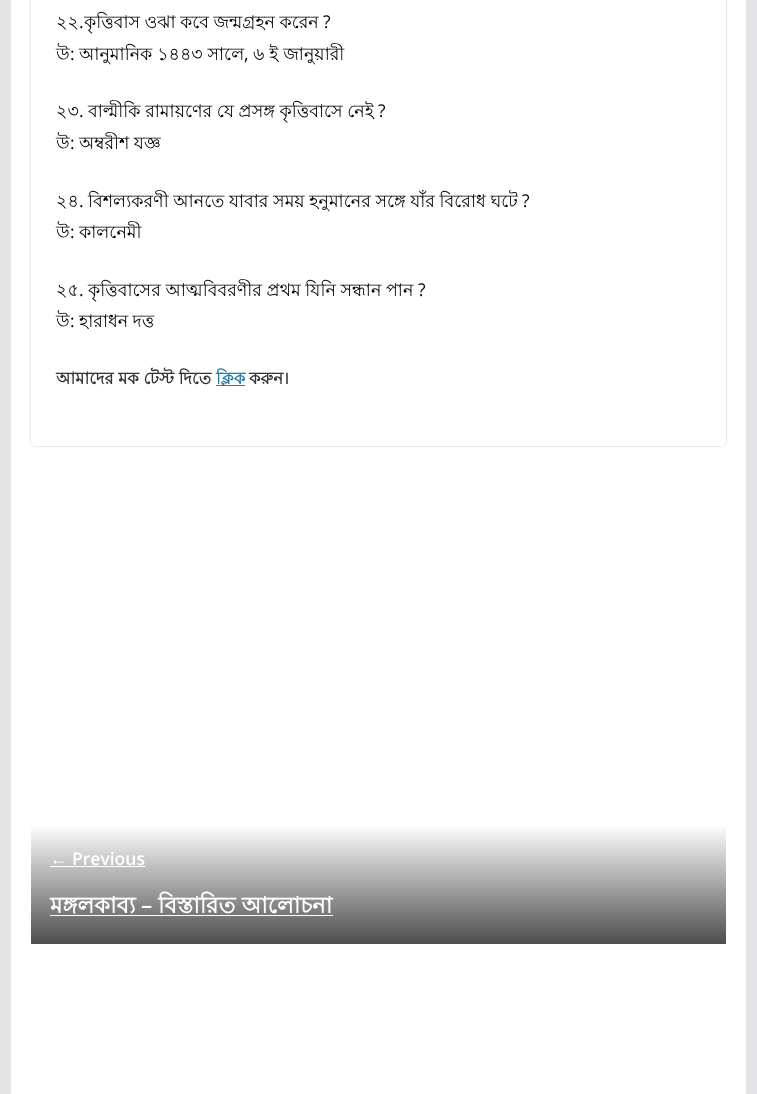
<!DOCTYPE html>
<meta charset="utf-8">
<style>body { margin: 0 } canvas { display: block }</style>
<canvas id="canvas" width="757" height="1094"></canvas>
<script>
window.onload = function () {
	const canvas = document.getElementById("canvas");
	const ctx = canvas.getContext("2d");
	ctx.miterLimit = 4;
	ctx.fontKerning = "normal";
	function txt(s, x, y) {
		ctx.fillText(s, x, y);
	}
	function fill(x, y, w, h) {
		ctx.fillRect(x, y, w, h);
	}
	let gradient;

	ctx.fillStyle = "#E4E4E7";
	fill(0, 0, 757, 1094);
	ctx.fillStyle = "#FFFFFF";
	fill(11, 0, 735, 1094);
	ctx.save();
	ctx.beginPath();
	ctx.moveTo(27, 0);
	ctx.lineTo(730, 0);
	ctx.lineTo(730, 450);
	ctx.lineTo(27, 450);
	ctx.closePath();
	ctx.moveTo(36, -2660);
	ctx.lineTo(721, -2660);
	ctx.bezierCurveTo(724, -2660, 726, -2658, 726, -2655);
	ctx.lineTo(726, 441);
	ctx.bezierCurveTo(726, 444, 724, 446, 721, 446);
	ctx.lineTo(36, 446);
	ctx.bezierCurveTo(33, 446, 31, 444, 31, 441);
	ctx.lineTo(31, -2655);
	ctx.bezierCurveTo(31, -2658, 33, -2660, 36, -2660);
	ctx.closePath();
	ctx.clip("evenodd");
	ctx.fillStyle = "rgba(0, 0, 0, 0.24)";
	ctx.filter = "blur(1px)";
	ctx.beginPath();
	ctx.roundRect(31, -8, 695, 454, 5);
	ctx.fill();
	ctx.filter = "none";
	ctx.restore();
	ctx.fillStyle = "#207DAF";
	fill(216, 385, 29, 1);
	gradient = ctx.createLinearGradient(379, 824, 379, 944);
	gradient.addColorStop(0, "#FFFFFF");
	gradient.addColorStop(1, "#4D4D4D");
	ctx.fillStyle = gradient;
	fill(31, 826, 695, 118);
	ctx.fillStyle = "#FFFFFF";
	fill(50, 866, 95, 1);
	fill(50, 915, 283, 1);
	ctx.font = "17.5px Lohit Bengali";
	ctx.fillStyle = "#000000";
	txt("২২", 56, 28);
	ctx.font = "17.5px Open Sans";
	txt("?", 323, 28);
	txt(".", 79, 28);
	ctx.wordSpacing = "-0.5px";
	ctx.font = "17.5px Lohit Bengali";
	txt("কৃত্তিবাস ওঝা কবে জন্মগ্রহন করেন", 84, 28);
	ctx.wordSpacing = "0px";
	txt("উ", 56, 60);
	ctx.font = "17.5px Open Sans";
	txt(":", 70, 60);
	ctx.font = "17.5px Lohit Bengali";
	txt("আনুমানিক ১৪৪৩ সালে", 79, 60);
	ctx.font = "17.5px Open Sans";
	txt(",", 244, 60);
	ctx.font = "17.5px Lohit Bengali";
	txt("৬ ই জানুয়ারী", 253, 60);
	txt("২৩", 56, 117);
	ctx.font = "17.5px Open Sans";
	txt(".", 79, 117);
	ctx.wordSpacing = "-0.25px";
	ctx.font = "17.5px Lohit Bengali";
	txt("বাল্মীকি রামায়ণের যে প্রসঙ্গ কৃত্তিবাসে নেই", 88, 117);
	ctx.wordSpacing = "0px";
	ctx.font = "17.5px Open Sans";
	txt("?", 378, 117);
	ctx.font = "17.5px Lohit Bengali";
	txt("উ", 56, 149);
	ctx.font = "17.5px Open Sans";
	txt(":", 70, 149);
	ctx.wordSpacing = "-0.5px";
	ctx.font = "17.5px Lohit Bengali";
	txt("অম্বরীশ যজ্ঞ", 79, 149);
	ctx.wordSpacing = "0px";
	txt("২৪", 56, 207);
	ctx.font = "17.5px Open Sans";
	txt(".", 79, 207);
	ctx.wordSpacing = "-0.25px";
	ctx.font = "17.5px Lohit Bengali";
	txt("বিশল্যকরণী আনতে যাবার সময় হনুমানের সঙ্গে যাঁর বিরোধ ঘটে", 88, 207);
	ctx.wordSpacing = "0px";
	ctx.font = "17.5px Open Sans";
	txt("?", 522, 207);
	ctx.font = "17.5px Lohit Bengali";
	txt("উ", 56, 238);
	ctx.font = "17.5px Open Sans";
	txt(":", 70, 238);
	ctx.font = "17.5px Lohit Bengali";
	txt("কালনেমী", 79, 238);
	txt("২৫", 56, 296);
	ctx.font = "17.5px Open Sans";
	txt("?", 418, 296);
	txt(".", 79, 296);
	ctx.wordSpacing = "-0.25px";
	ctx.font = "17.5px Lohit Bengali";
	txt("কৃত্তিবাসের আত্মবিবরণীর প্রথম যিনি সন্ধান পান", 88, 296);
	ctx.wordSpacing = "0px";
	txt("উ", 56, 327);
	ctx.font = "17.5px Open Sans";
	txt(":", 70, 327);
	ctx.wordSpacing = "-0.5px";
	ctx.font = "17.5px Lohit Bengali";
	txt("হারাধন দত্ত", 79, 327);
	ctx.wordSpacing = "0px";
	ctx.font = "bold 16.5px Lohit Bengali";
	ctx.fillStyle = "#333333";
	txt("আমাদের মক টেস্ট দিতে", 56, 384);
	ctx.fillStyle = "#207DAF";
	txt("ক্লিক", 216, 384);
	ctx.fillStyle = "#333333";
	txt("করুন।", 249, 384);
	ctx.font = "bold 17.5px Liberation Serif";
	ctx.fillStyle = "#FFFFFF";
	txt("←", 50, 865);
	ctx.font = "600 17.5px Open Sans";
	txt("Previous", 72, 865);
	ctx.font = "bold 22.5px Lohit Bengali";
	txt("মঙ্গলকাব্য", 50, 913);
	ctx.font = "600 22.5px Open Sans";
	txt("–", 141, 913);
	ctx.font = "bold 22.5px Lohit Bengali";
	txt("বিস্তারিত আলোচনা", 158, 913);
};
</script>
